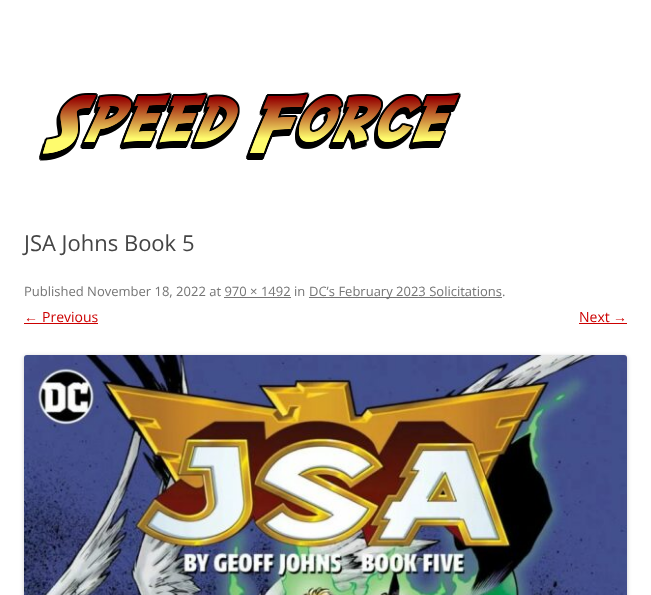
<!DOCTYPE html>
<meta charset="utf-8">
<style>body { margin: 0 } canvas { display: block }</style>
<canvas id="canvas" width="651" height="595"></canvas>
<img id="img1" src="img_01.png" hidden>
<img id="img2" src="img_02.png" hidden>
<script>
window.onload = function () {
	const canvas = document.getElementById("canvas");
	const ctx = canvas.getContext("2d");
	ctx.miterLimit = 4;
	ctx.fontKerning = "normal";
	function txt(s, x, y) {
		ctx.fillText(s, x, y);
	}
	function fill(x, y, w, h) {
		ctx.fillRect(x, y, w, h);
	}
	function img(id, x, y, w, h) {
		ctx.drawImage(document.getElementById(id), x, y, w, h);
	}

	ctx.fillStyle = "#FFFFFF";
	fill(0, 0, 651, 595);
	img("img1", 39, 92, 422, 69);
	ctx.fillStyle = "#757575";
	fill(309, 297, 193, 1);
	fill(224, 297, 67, 1);
	ctx.fillStyle = "#CC0000";
	fill(24, 323, 74, 1);
	fill(579, 323, 48, 1);
	ctx.fillStyle = "rgba(0, 0, 0, 0.2)";
	ctx.filter = "blur(2px)";
	ctx.beginPath();
	ctx.roundRect(24, 356, 603, 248, 3);
	ctx.fill();
	ctx.filter = "none";
	img("img2", 24, 355, 603, 240);
	ctx.font = "22px Open Sans";
	ctx.fillStyle = "#444444";
	txt("JSA Johns Book 5", 24, 251);
	ctx.font = "13px Open Sans";
	ctx.fillStyle = "#757575";
	txt("Published November 18, 2022 at 970 × 1492 in", 24, 296);
	txt("DC’s February 2023 Solicitations.", 309, 296);
	ctx.font = "14px Liberation Sans";
	ctx.fillStyle = "#CC0000";
	txt("←", 24, 322);
	ctx.font = "14px Open Sans";
	txt("Previous", 42, 322);
	txt("Next", 579, 322);
	ctx.font = "14px Liberation Sans";
	txt("→", 613, 322);
};
</script>
